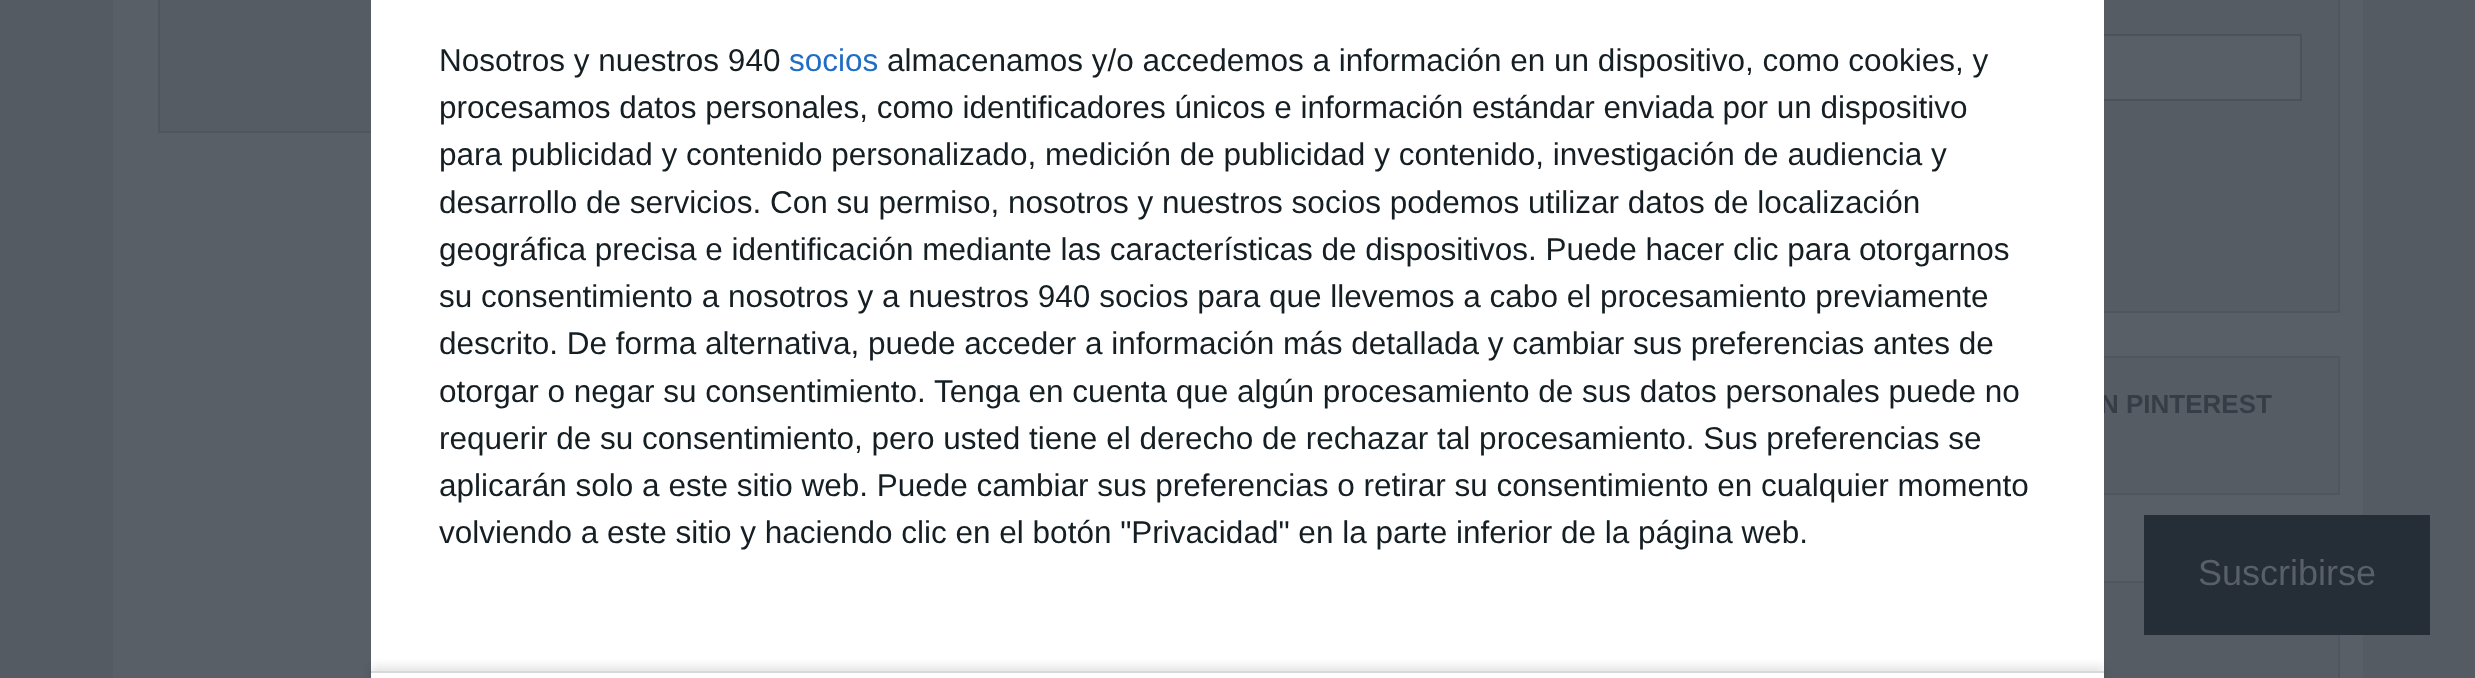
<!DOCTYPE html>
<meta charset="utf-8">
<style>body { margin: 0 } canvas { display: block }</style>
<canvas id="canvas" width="2475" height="678"></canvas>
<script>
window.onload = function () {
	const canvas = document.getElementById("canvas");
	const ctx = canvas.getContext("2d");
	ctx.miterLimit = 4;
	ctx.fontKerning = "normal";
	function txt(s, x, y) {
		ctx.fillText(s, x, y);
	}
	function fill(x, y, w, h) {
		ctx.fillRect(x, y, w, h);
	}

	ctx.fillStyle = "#555B63";
	fill(0, 0, 2475, 678);
	ctx.fillStyle = "#595F67";
	fill(113, 0, 2250, 678);
	ctx.fillStyle = "#565C64";
	fill(160, 0, 211, 131);
	ctx.strokeStyle = "#50565F";
	ctx.lineWidth = 2;
	ctx.strokeRect(159, -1, 1469, 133);
	fill(2104, 0, 234, 311);
	ctx.strokeRect(1666, -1, 673, 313);
	ctx.fillStyle = "#595F67";
	fill(2104, 36, 196, 63);
	ctx.strokeStyle = "#4C525A";
	ctx.strokeRect(1698, 35, 603, 65);
	ctx.fillStyle = "#565C64";
	fill(2104, 358, 234, 135);
	ctx.strokeStyle = "#50565F";
	ctx.strokeRect(1666, 357, 673, 137);
	fill(2104, 583, 234, 95);
	ctx.strokeRect(1666, 582, 673, 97);
	ctx.fillStyle = "#252D36";
	fill(2144, 515, 286, 120);
	ctx.font = "bold 26px Liberation Sans";
	ctx.fillStyle = "#373D46";
	txt("N PINTEREST", 2100, 413);
	ctx.fillStyle = "#FFFFFF";
	fill(371, 0, 1733, 678);
	ctx.save();
	ctx.beginPath();
	ctx.moveTo(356, 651);
	ctx.lineTo(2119, 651);
	ctx.lineTo(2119, 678);
	ctx.lineTo(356, 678);
	ctx.closePath();
	ctx.moveTo(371, 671);
	ctx.lineTo(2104, 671);
	ctx.lineTo(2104, 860);
	ctx.lineTo(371, 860);
	ctx.closePath();
	ctx.clip("evenodd");
	ctx.fillStyle = "rgba(0, 0, 0, 0.1)";
	ctx.filter = "blur(4.5px)";
	ctx.beginPath();
	ctx.rect(371, 666, 1733, 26);
	ctx.fill();
	ctx.filter = "none";
	ctx.restore();
	ctx.fillStyle = "#D8D8D8";
	fill(371, 671, 1733, 2);
	ctx.font = "31.5px Liberation Sans";
	ctx.fillStyle = "#206DC5";
	txt("socios", 789, 71);
	ctx.fillStyle = "#141E23";
	txt("volviendo a este sitio y haciendo clic en el botón \"Privacidad\" en la parte inferior de la página web.", 439, 543);
	txt("aplicarán solo a este sitio web. Puede cambiar sus preferencias o retirar su consentimiento en cualquier momento", 439, 496);
	txt("requerir de su consentimiento, pero usted tiene el derecho de rechazar tal procesamiento. Sus preferencias se", 439, 449);
	txt("Tenga en cuenta que algún procesamiento de sus datos personales puede no", 934, 402);
	txt("otorgar o negar su consentimiento.", 439, 402);
	txt("descrito. De forma alternativa, puede acceder a información más detallada y cambiar sus preferencias antes de", 439, 354);
	txt("su consentimiento a nosotros y a nuestros 940 socios para que llevemos a cabo el procesamiento previamente", 439, 307);
	txt("geográfica precisa e identificación mediante las características de dispositivos. Puede hacer clic para otorgarnos", 439, 260);
	txt("desarrollo de servicios. Con su permiso, nosotros y nuestros socios podemos utilizar datos de localización", 439, 213);
	txt("para publicidad y contenido personalizado, medición de publicidad y contenido, investigación de audiencia y", 439, 165);
	txt("procesamos datos personales, como identificadores únicos e información estándar enviada por un dispositivo", 439, 118);
	txt("almacenamos y/o accedemos a información en un dispositivo, como cookies, y", 887, 71);
	txt("Nosotros y nuestros 940", 439, 71);
	ctx.font = "36px Liberation Sans";
	ctx.fillStyle = "#595F67";
	txt("Suscribirse", 2198, 585);
};
</script>
